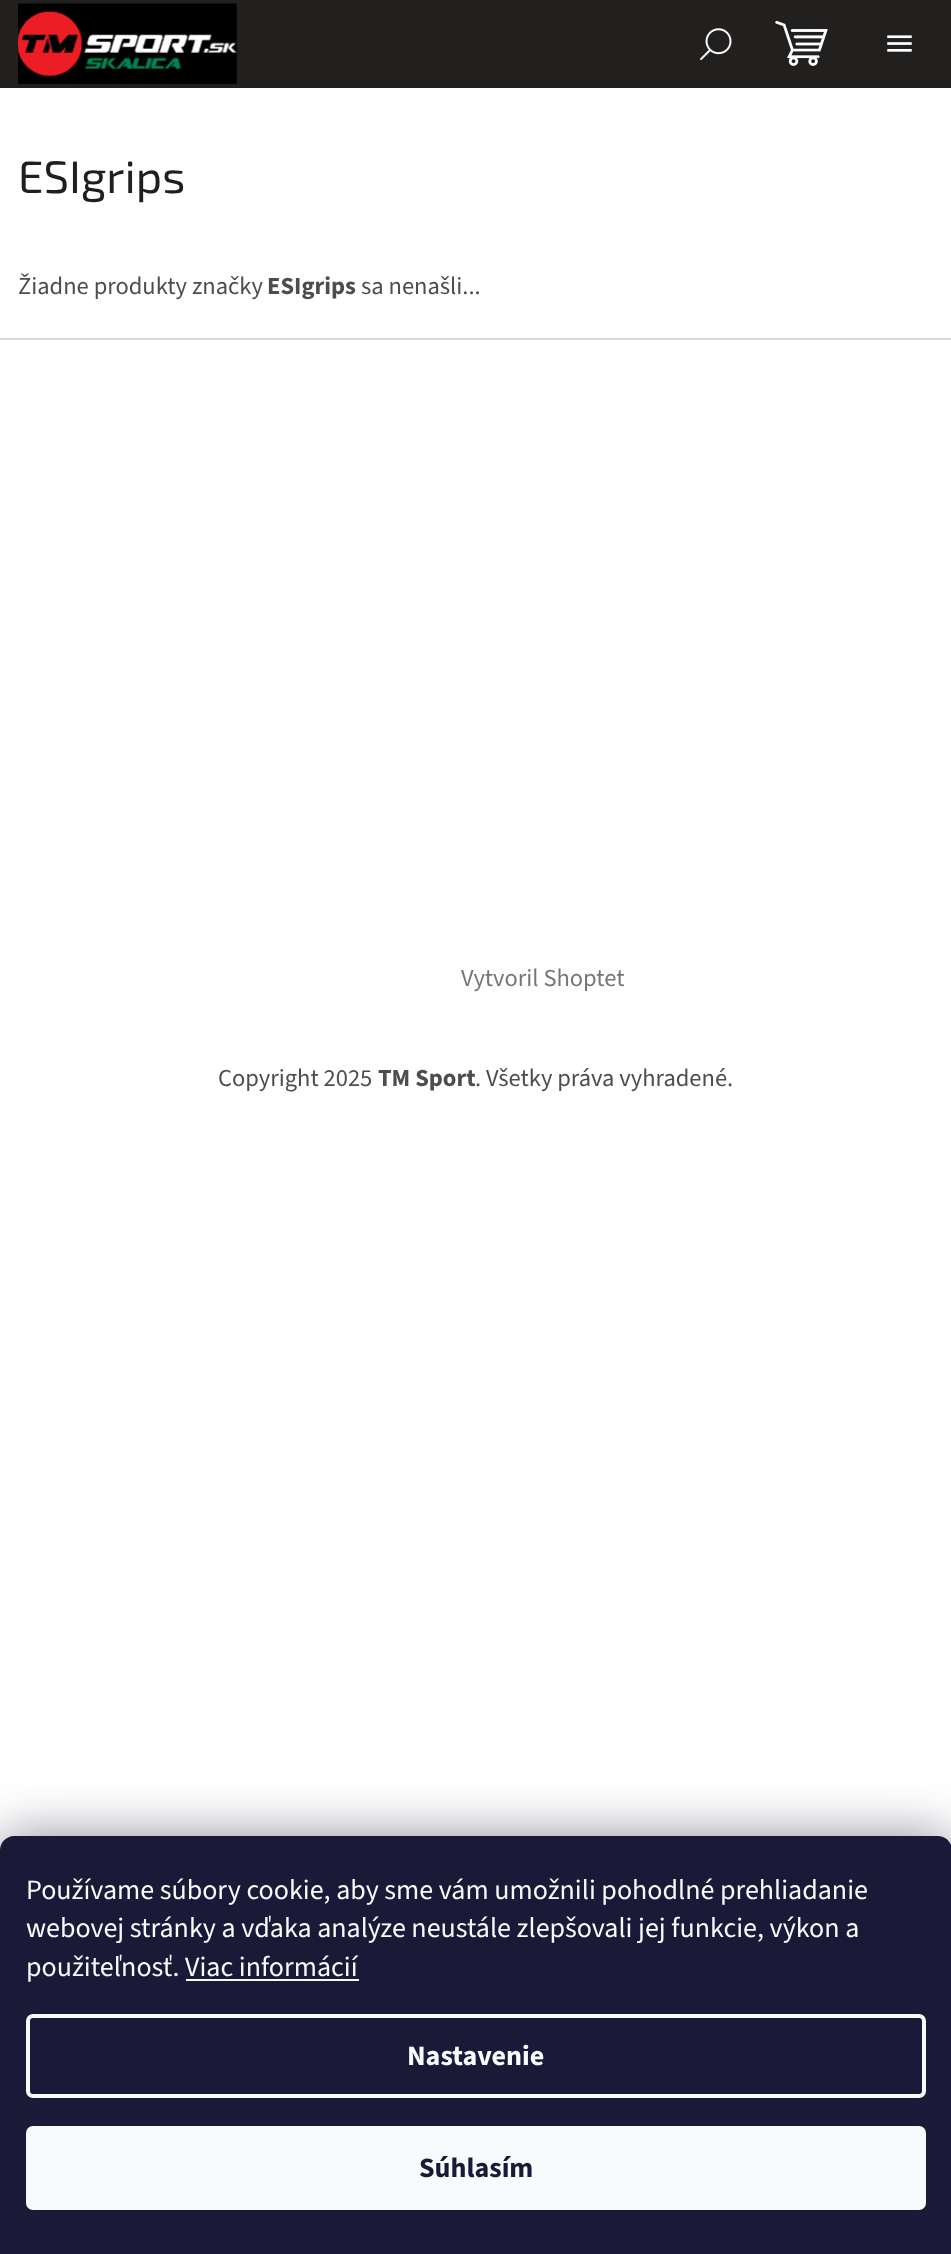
<!DOCTYPE html>
<meta charset="utf-8">
<style>body { margin: 0 } canvas { display: block }</style>
<canvas id="canvas" width="951" height="2254"></canvas>
<img id="img1" src="img_01.png" hidden>
<img id="img2" src="img_02.png" hidden>
<img id="img3" src="img_03.png" hidden>
<img id="img4" src="img_04.png" hidden>
<script>
window.onload = function () {
	const canvas = document.getElementById("canvas");
	const ctx = canvas.getContext("2d");
	ctx.miterLimit = 4;
	ctx.fontKerning = "normal";
	function txt(s, x, y) {
		ctx.fillText(s, x, y);
	}
	function fill(x, y, w, h) {
		ctx.fillRect(x, y, w, h);
	}
	function round(x, y, w, h, r) {
		ctx.beginPath();
		ctx.roundRect(x, y, w, h, r);
		ctx.fill();
	}
	function img(id, x, y, w, h) {
		ctx.drawImage(document.getElementById(id), x, y, w, h);
	}

	ctx.fillStyle = "#FFFFFF";
	fill(0, 0, 951, 2254);
	ctx.fillStyle = "#221F1F";
	fill(0, 0, 951, 88);
	img("img1", 700, 28, 32, 32);
	img("img2", 887, 35, 25, 17);
	img("img3", 18, 3, 219, 82);
	img("img4", 775, 20, 53, 46);
	ctx.fillStyle = "#DADADA";
	fill(0, 338, 951, 2);
	ctx.fillStyle = "rgba(27, 25, 57, 0.5)";
	ctx.filter = "blur(26px)";
	ctx.beginPath();
	ctx.roundRect(0, 1836, 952, 418, 14);
	ctx.fill();
	ctx.filter = "none";
	ctx.fillStyle = "#1A1937";
	ctx.beginPath();
	ctx.moveTo(14, 1836);
	ctx.lineTo(938, 1836);
	ctx.bezierCurveTo(945.5, 1836, 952, 1842.5, 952, 1850);
	ctx.lineTo(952, 2254);
	ctx.lineTo(0, 2254);
	ctx.lineTo(0, 1850);
	ctx.bezierCurveTo(0, 1842.5, 6.5, 1836, 14, 1836);
	ctx.closePath();
	ctx.fill();
	ctx.fillStyle = "#F8FAFB";
	fill(186, 1979, 173, 2);
	ctx.beginPath();
	ctx.roundRect(28, 2016, 896, 80, 5);
	ctx.strokeStyle = "#F8FAFB";
	ctx.lineWidth = 4;
	ctx.stroke();
	round(26, 2126, 900, 84, 7);
	ctx.font = "45.5px 'Exo 2'";
	ctx.fillStyle = "#1F1F1F";
	txt("ESIgrips", 18, 193);
	ctx.font = "24.5px 'Source Sans 3'";
	ctx.fillStyle = "#4D4D4D";
	txt("Žiadne produkty značky", 18, 294);
	ctx.font = "bold 24.5px 'Source Sans 3'";
	txt("ESIgrips", 267, 294);
	ctx.font = "24.5px 'Source Sans 3'";
	txt("sa nenašli...", 361, 294);
	ctx.fillStyle = "#767676";
	txt("Vytvoril Shoptet", 461, 986);
	ctx.fillStyle = "#4D4D4D";
	txt("Copyright 2025", 218, 1086);
	ctx.font = "bold 24.5px 'Source Sans 3'";
	txt("TM Sport", 378, 1086);
	ctx.font = "24.5px 'Source Sans 3'";
	txt(". Všetky práva vyhradené.", 475, 1086);
	ctx.font = "28px 'Source Sans 3'";
	ctx.fillStyle = "#F8FAFB";
	txt("Používame súbory cookie, aby sme vám umožnili pohodlné prehliadanie", 26, 1899);
	txt("webovej stránky a vďaka analýze neustále zlepšovali jej funkcie, výkon a", 26, 1937);
	txt("použiteľnosť. Viac informácií", 26, 1976);
	ctx.font = "bold 28px 'Source Sans 3'";
	txt("Nastavenie", 407, 2065);
	ctx.fillStyle = "#1A1937";
	txt("Súhlasím", 419, 2177);
};
</script>
